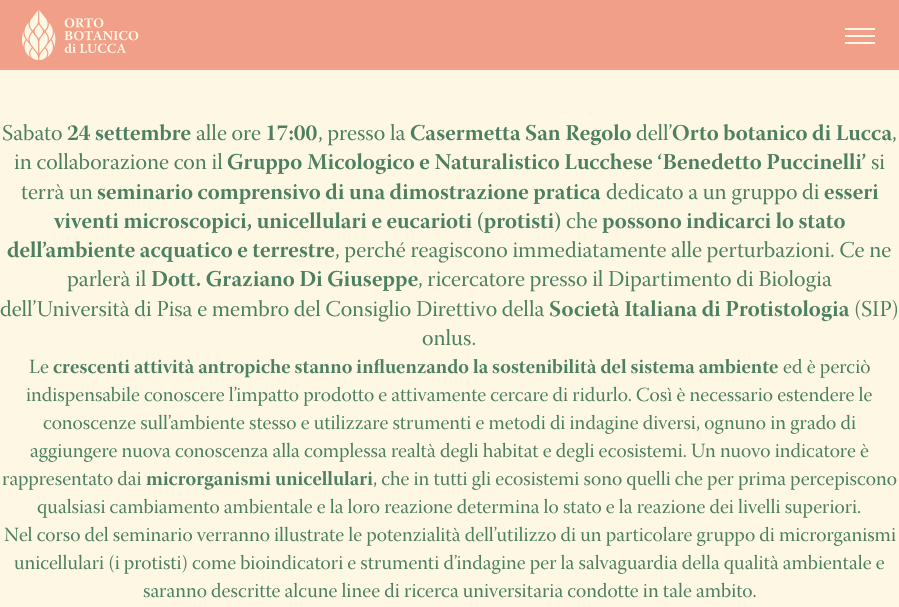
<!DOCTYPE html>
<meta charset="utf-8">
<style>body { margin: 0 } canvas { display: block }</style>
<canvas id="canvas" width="899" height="607"></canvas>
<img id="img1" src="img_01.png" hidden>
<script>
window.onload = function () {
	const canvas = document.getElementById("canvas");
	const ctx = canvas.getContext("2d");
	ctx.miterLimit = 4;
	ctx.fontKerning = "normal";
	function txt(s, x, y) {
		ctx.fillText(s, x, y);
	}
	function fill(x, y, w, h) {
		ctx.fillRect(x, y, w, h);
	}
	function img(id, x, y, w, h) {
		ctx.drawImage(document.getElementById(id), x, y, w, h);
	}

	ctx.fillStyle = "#FDF7E3";
	fill(0, 0, 899, 607);
	ctx.fillStyle = "#F19F88";
	fill(0, 0, 899, 70);
	img("img1", 22, 10, 117, 50);
	ctx.fillStyle = "#FDF7E3";
	fill(845, 28, 30, 2);
	fill(845, 35, 30, 2);
	fill(845, 42, 30, 2);
	ctx.font = "22.5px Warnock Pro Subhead";
	ctx.fillStyle = "#4D8062";
	txt("Sabato", 2, 140);
	ctx.font = "bold 22.5px Warnock Pro Subhead";
	txt("24 settembre", 67, 140);
	ctx.font = "22.5px Warnock Pro Subhead";
	txt("alle ore", 196, 140);
	ctx.font = "bold 22.5px Warnock Pro Subhead";
	txt("17:00", 265, 140);
	ctx.font = "22.5px Warnock Pro Subhead";
	txt(", presso la", 318, 140);
	ctx.font = "bold 22.5px Warnock Pro Subhead";
	txt("Casermetta San Regolo", 410, 140);
	ctx.font = "22.5px Warnock Pro Subhead";
	txt("dell’", 636, 140);
	ctx.font = "bold 22.5px Warnock Pro Subhead";
	txt("Orto botanico di Lucca", 672, 140);
	ctx.font = "22.5px Warnock Pro Subhead";
	txt(",", 892, 140);
	txt("in collaborazione con il", 14, 169);
	ctx.font = "bold 22.5px Warnock Pro Subhead";
	txt("Gruppo Micologico e Naturalistico Lucchese ‘Benedetto Puccinelli’", 227, 169);
	ctx.font = "22.5px Warnock Pro Subhead";
	txt("si", 871, 169);
	txt("terrà un", 21, 199);
	ctx.font = "bold 22.5px Warnock Pro Subhead";
	txt("seminario comprensivo di una dimostrazione pratica", 97, 199);
	ctx.font = "22.5px Warnock Pro Subhead";
	txt("dedicato a un gruppo di", 606, 199);
	ctx.font = "bold 22.5px Warnock Pro Subhead";
	txt("esseri", 824, 199);
	txt("viventi microscopici, unicellulari e eucarioti (protisti)", 54, 228);
	ctx.font = "22.5px Warnock Pro Subhead";
	txt("che", 566, 228);
	ctx.font = "bold 22.5px Warnock Pro Subhead";
	txt("possono indicarci lo stato", 602, 228);
	txt("dell’ambiente acquatico e terrestre", 7, 257);
	ctx.font = "22.5px Warnock Pro Subhead";
	txt(", perché reagiscono immediatamente alle perturbazioni. Ce ne", 335, 257);
	txt("parlerà il", 67, 286);
	ctx.font = "bold 22.5px Warnock Pro Subhead";
	txt("Dott. Graziano Di Giuseppe", 151, 286);
	ctx.font = "22.5px Warnock Pro Subhead";
	txt(", ricercatore presso il Dipartimento di Biologia", 418, 286);
	txt("dell’Università di Pisa e membro del Consiglio Direttivo della", 0, 316);
	ctx.font = "bold 22.5px Warnock Pro Subhead";
	txt("Società Italiana di Protistologia", 549, 316);
	ctx.font = "22.5px Warnock Pro Subhead";
	txt("(SIP)", 854, 316);
	txt("onlus.", 422, 345);
	ctx.font = "20px Warnock Pro Subhead";
	txt("Le", 29, 373);
	ctx.font = "bold 20px Warnock Pro Subhead";
	txt("crescenti attività antropiche stanno influenzando la sostenibilità del sistema ambiente", 53, 373);
	ctx.font = "20px Warnock Pro Subhead";
	txt("ed è perciò", 783, 373);
	txt("indispensabile conoscere l’impatto prodotto e attivamente cercare di ridurlo. Così è necessario estendere le", 26, 401);
	txt("conoscenze sull’ambiente stesso e utilizzare strumenti e metodi di indagine diversi, ognuno in grado di", 43, 429);
	txt("aggiungere nuova conoscenza alla complessa realtà degli habitat e degli ecosistemi. Un nuovo indicatore è", 30, 457);
	txt("rappresentato dai", 2, 485);
	ctx.font = "bold 20px Warnock Pro Subhead";
	txt("microrganismi unicellulari", 146, 485);
	ctx.font = "20px Warnock Pro Subhead";
	txt(", che in tutti gli ecosistemi sono quelli che per prima percepiscono", 373, 485);
	txt("qualsiasi cambiamento ambientale e la loro reazione determina lo stato e la reazione dei livelli superiori.", 37, 513);
	txt("Nel corso del seminario verranno illustrate le potenzialità dell’utilizzo di un particolare gruppo di microrganismi", 4, 541);
	txt("unicellulari (i protisti) come bioindicatori e strumenti d’indagine per la salvaguardia della qualità ambientale e", 14, 569);
	txt("saranno descritte alcune linee di ricerca universitaria condotte in tale ambito.", 143, 597);
};
</script>
